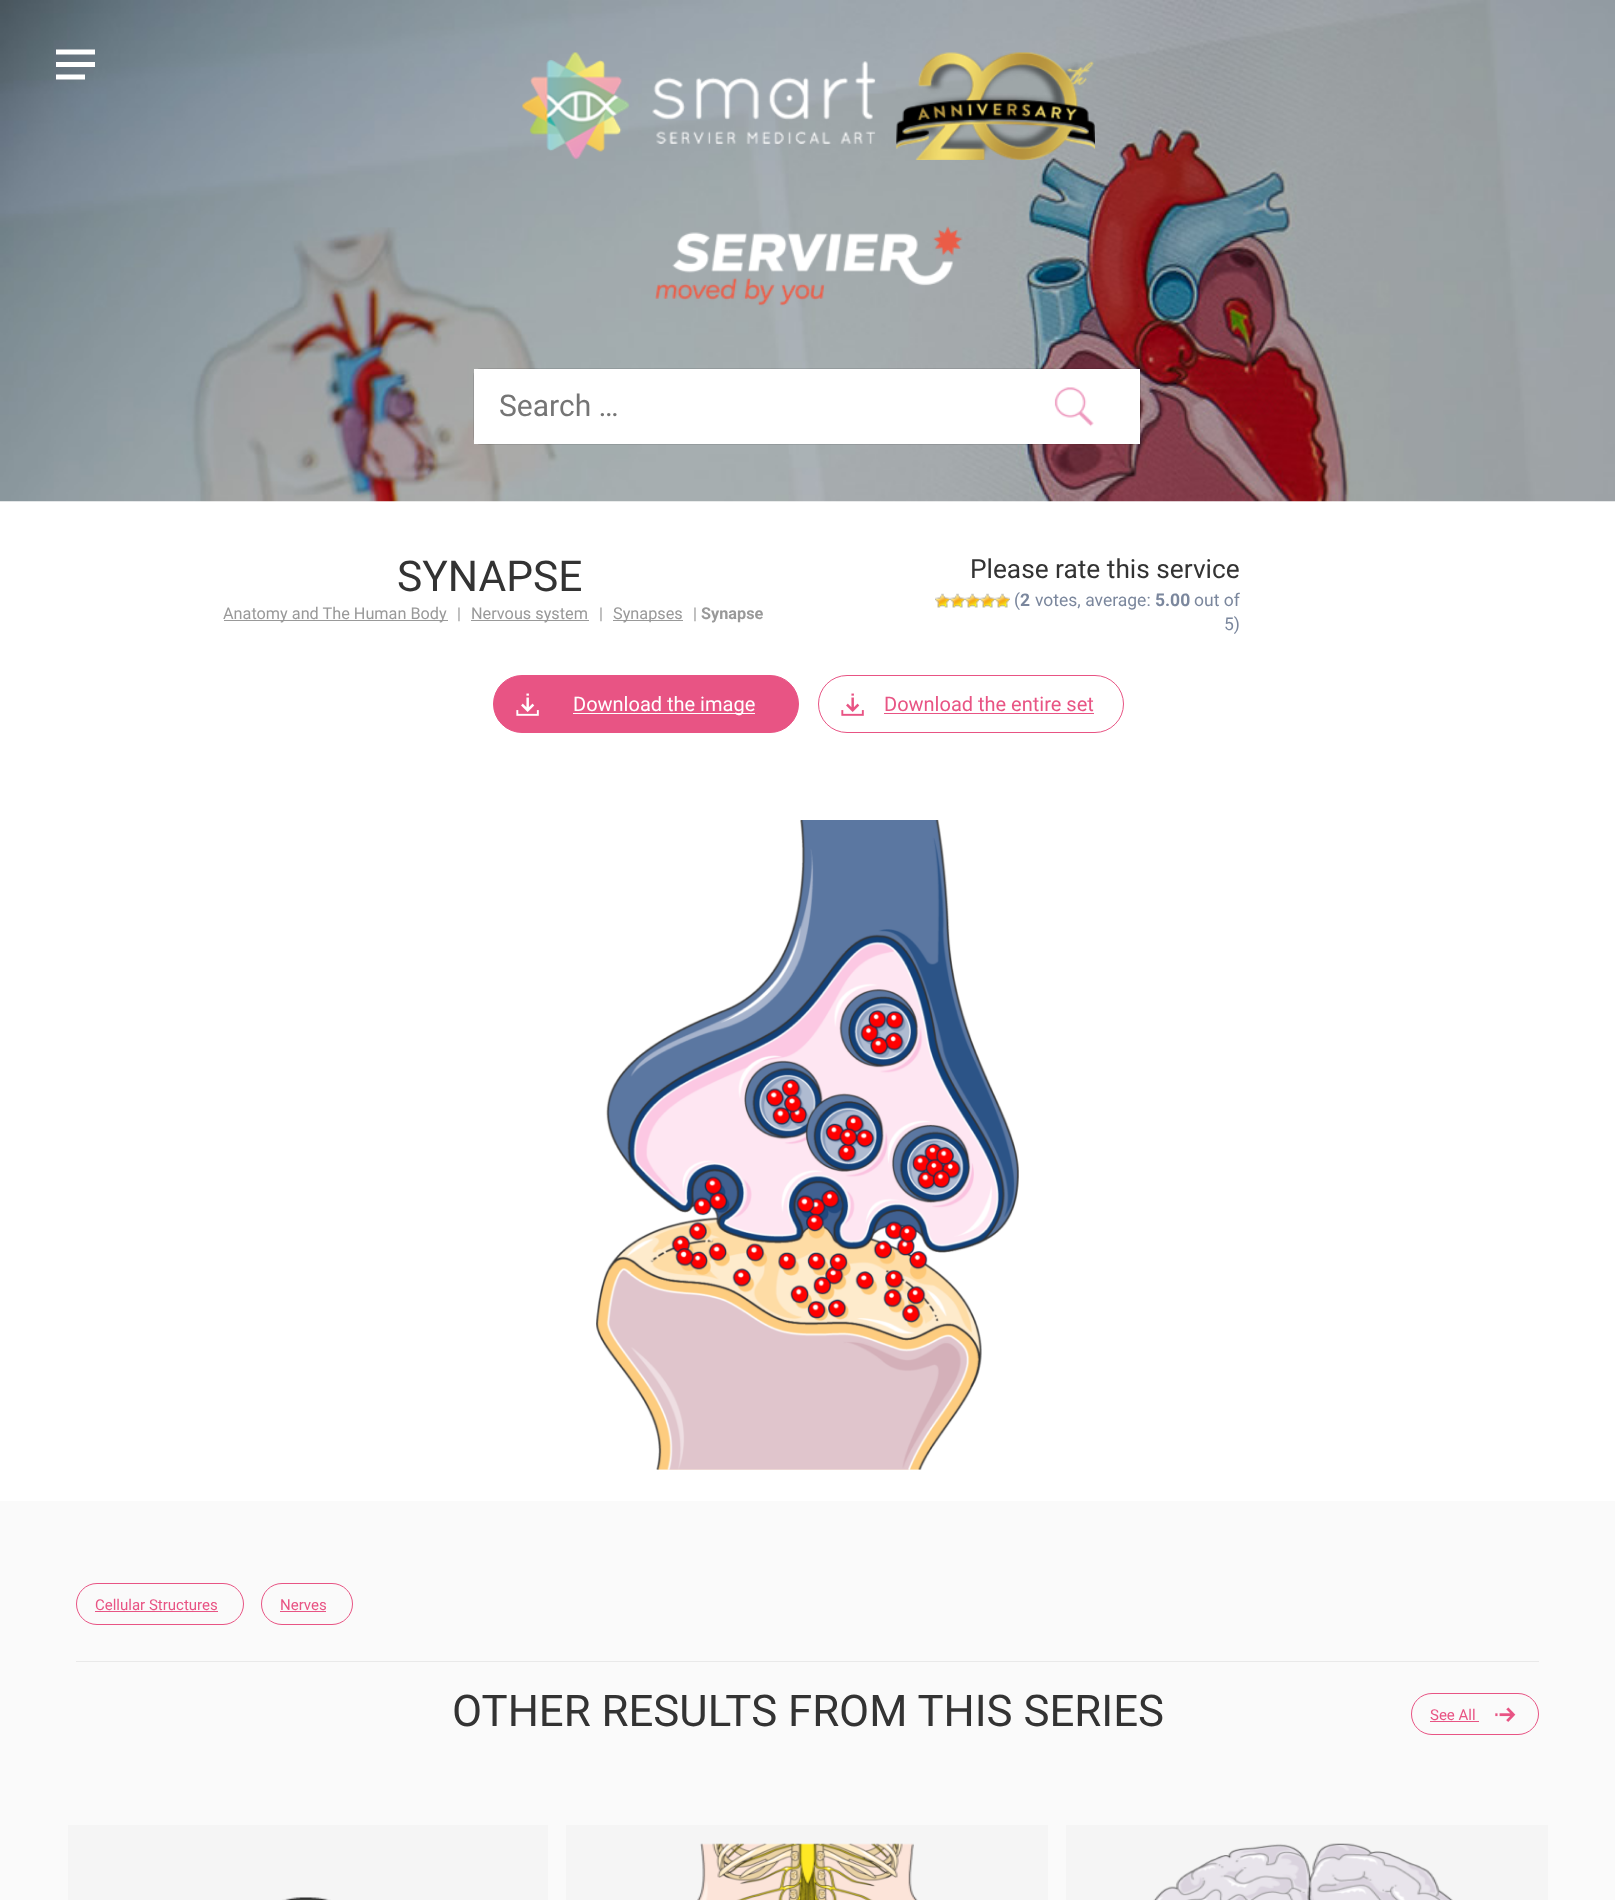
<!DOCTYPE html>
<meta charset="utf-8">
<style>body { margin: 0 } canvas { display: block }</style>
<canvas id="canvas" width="1615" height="1900"></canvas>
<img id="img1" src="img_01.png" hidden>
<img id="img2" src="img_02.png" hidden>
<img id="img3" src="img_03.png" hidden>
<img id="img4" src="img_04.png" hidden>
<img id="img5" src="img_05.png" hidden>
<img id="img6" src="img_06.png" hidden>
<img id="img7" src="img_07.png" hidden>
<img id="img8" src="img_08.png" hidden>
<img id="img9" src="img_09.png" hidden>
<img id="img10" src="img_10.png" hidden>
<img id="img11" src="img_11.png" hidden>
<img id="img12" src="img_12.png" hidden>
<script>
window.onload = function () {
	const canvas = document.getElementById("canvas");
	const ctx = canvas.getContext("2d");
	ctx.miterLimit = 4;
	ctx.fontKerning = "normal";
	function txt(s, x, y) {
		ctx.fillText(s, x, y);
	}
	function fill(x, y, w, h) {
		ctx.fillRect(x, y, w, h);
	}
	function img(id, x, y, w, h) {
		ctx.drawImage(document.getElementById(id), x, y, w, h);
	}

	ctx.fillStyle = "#FFFFFF";
	fill(0, 0, 1615, 1900);
	img("img1", 0, 0, 1615, 502);
	ctx.beginPath();
	ctx.moveTo(56, 62);
	ctx.lineTo(95, 62);
	ctx.lineTo(95, 67);
	ctx.lineTo(56, 67);
	ctx.closePath();
	ctx.moveTo(56, 54.5);
	ctx.lineTo(95, 54.5);
	ctx.lineTo(95, 49.5);
	ctx.lineTo(56, 49.5);
	ctx.closePath();
	ctx.moveTo(56, 79.5);
	ctx.lineTo(85, 79.5);
	ctx.lineTo(85, 74.5);
	ctx.lineTo(56, 74.5);
	ctx.closePath();
	ctx.fill();
	img("img2", 522, 52, 573, 108);
	img("img3", 655, 226, 308, 80);
	ctx.beginPath();
	ctx.roundRect(473.5, 368.5, 667, 76, 7.5);
	ctx.strokeStyle = "rgba(0, 0, 0, 0.1)";
	ctx.stroke();
	fill(474, 369, 666, 75);
	img("img4", 1054, 387, 40, 40);
	ctx.fillStyle = "#999999";
	fill(224, 620, 224, 1);
	fill(471, 620, 118, 1);
	fill(613, 620, 70, 1);
	img("img5", 935, 593, 15, 15);
	img("img5", 950, 593, 15, 15);
	img("img5", 965, 593, 15, 15);
	img("img5", 980, 593, 15, 15);
	img("img5", 995, 593, 15, 15);
	ctx.fillStyle = "#E85484";
	ctx.beginPath();
	ctx.roundRect(493.5, 675.5, 305, 57, 28.5);
	ctx.fill();
	ctx.strokeStyle = "#E85484";
	ctx.stroke();
	img("img6", 516, 693, 23, 23);
	ctx.fillStyle = "#FFFFFF";
	fill(573, 713, 182, 1);
	ctx.beginPath();
	ctx.roundRect(818.5, 675.5, 305, 57, 28.5);
	ctx.stroke();
	img("img7", 841, 693, 23, 23);
	ctx.fillStyle = "#E85484";
	fill(884, 713, 210, 1);
	img("img8", 596, 820, 423, 650);
	ctx.fillStyle = "#FAFAFA";
	fill(0, 1501, 1615, 399);
	ctx.beginPath();
	ctx.roundRect(76.5, 1583.5, 167, 41, 20.5);
	ctx.stroke();
	ctx.fillStyle = "#E85484";
	fill(95, 1611, 123, 1);
	ctx.beginPath();
	ctx.roundRect(261.5, 1583.5, 91, 41, 20.5);
	ctx.stroke();
	fill(280, 1611, 46, 1);
	ctx.fillStyle = "#E9E9E9";
	fill(76, 1661, 1463, 1);
	ctx.beginPath();
	ctx.roundRect(1411.5, 1693.5, 127, 41, 20.5);
	ctx.stroke();
	ctx.fillStyle = "#E85484";
	fill(1430, 1721, 49, 1);
	img("img9", 1495, 1707, 21, 15);
	ctx.fillStyle = "#F5F5F5";
	fill(68, 1825, 480, 75);
	img("img10", 282, 1897, 49, 3);
	fill(566, 1825, 482, 75);
	img("img11", 697, 1843, 221, 57);
	fill(1066, 1825, 482, 75);
	img("img12", 1153, 1843, 300, 57);
	ctx.font = "30px Roboto";
	ctx.fillStyle = "#757575";
	txt("Search …", 499, 416);
	ctx.font = "42.5px Roboto";
	ctx.fillStyle = "#333333";
	txt("SYNAPSE", 397, 591);
	ctx.font = "16.25px Roboto";
	ctx.fillStyle = "#999999";
	txt("Anatomy and The Human Body", 223, 619);
	txt("|", 457, 619);
	txt("Nervous system", 471, 619);
	txt("|", 599, 619);
	txt("Synapses", 613, 619);
	txt("|", 693, 619);
	ctx.font = "bold 16.25px Roboto";
	txt("Synapse", 701, 619);
	ctx.font = "26.25px Roboto";
	ctx.fillStyle = "#333333";
	txt("Please rate this service", 970, 578);
	ctx.font = "17.5px Roboto";
	ctx.fillStyle = "#7B879D";
	txt("(", 1014, 606);
	ctx.font = "bold 17.5px Roboto";
	txt("2", 1020, 606);
	ctx.font = "17.5px Roboto";
	txt("votes, average:", 1035, 606);
	ctx.font = "bold 17.5px Roboto";
	txt("5.00", 1155, 606);
	ctx.font = "17.5px Roboto";
	txt("out of", 1194, 606);
	txt("5)", 1224, 630);
	ctx.font = "20px Roboto";
	ctx.fillStyle = "#FFFFFF";
	txt("Download the image", 573, 711);
	ctx.fillStyle = "#E85484";
	txt("Download the entire set", 884, 711);
	ctx.font = "15px Roboto";
	txt("Cellular Structures", 95, 1610);
	txt("Nerves", 280, 1610);
	ctx.font = "43.75px Roboto";
	ctx.fillStyle = "#333333";
	txt("OTHER RESULTS FROM THIS SERIES", 452, 1726);
	ctx.font = "15px Roboto";
	ctx.fillStyle = "#E85484";
	txt("See All", 1430, 1720);
};
</script>
